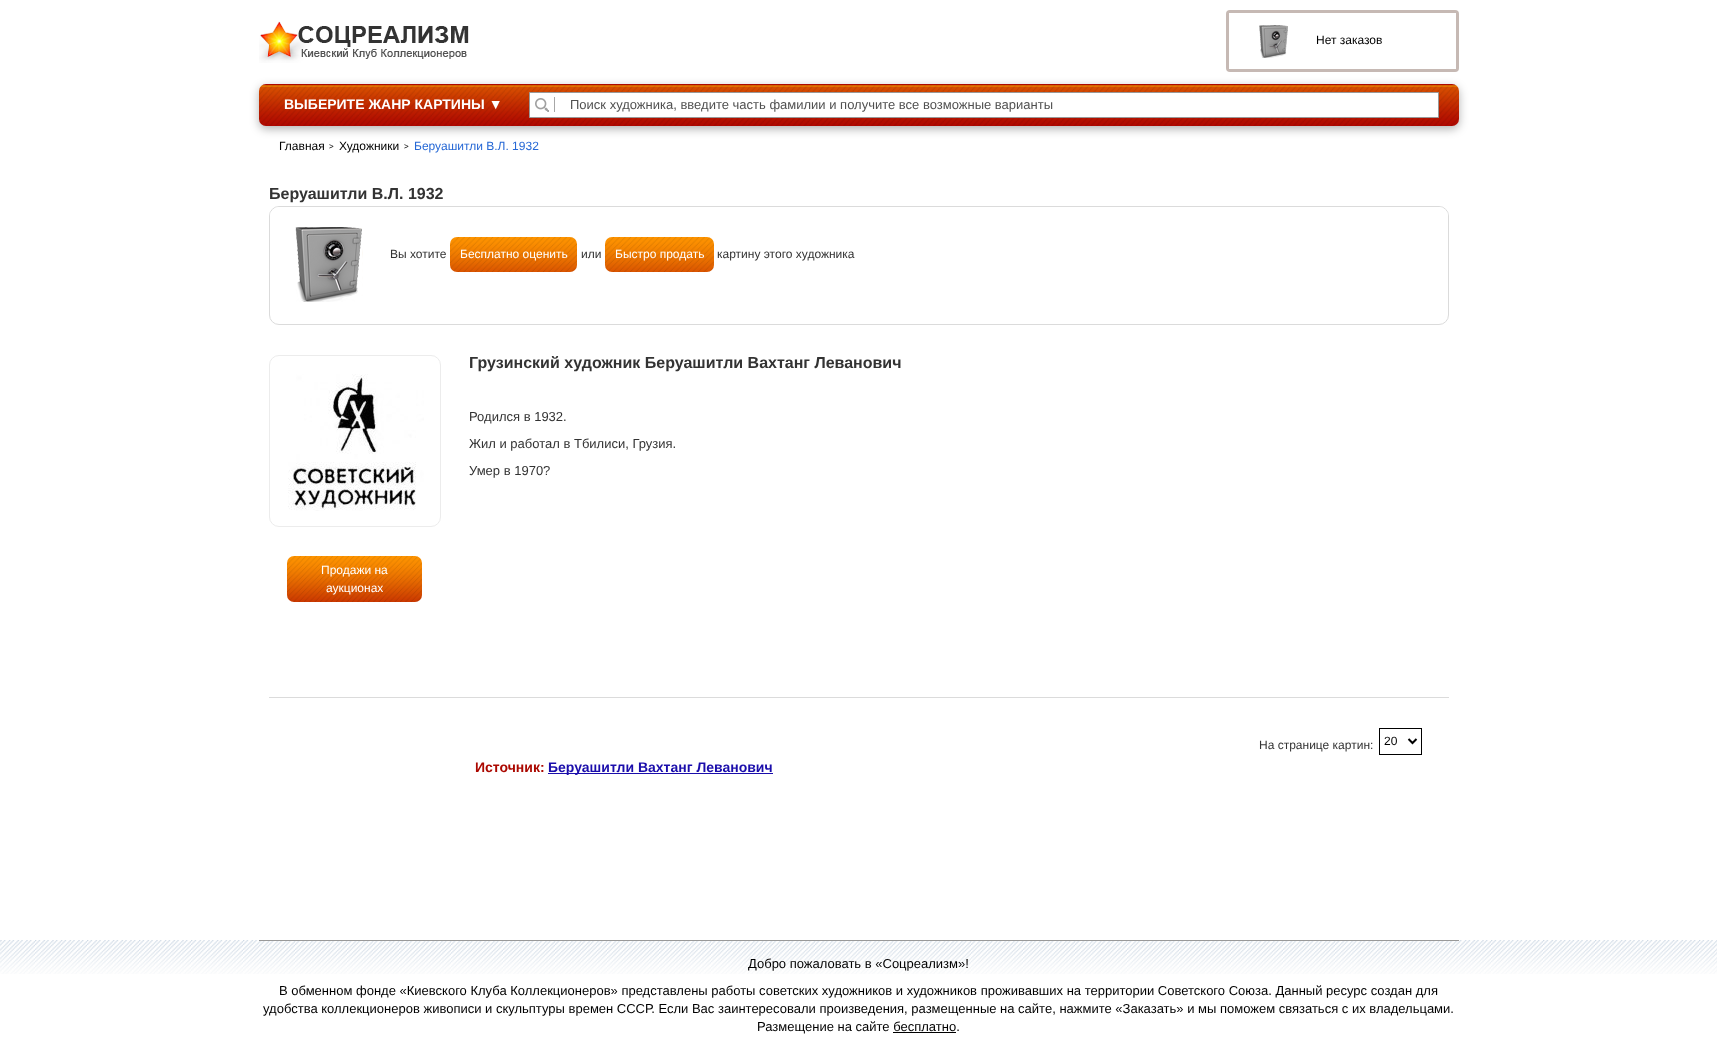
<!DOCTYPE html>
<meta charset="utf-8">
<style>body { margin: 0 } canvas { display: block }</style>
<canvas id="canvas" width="1717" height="1062"></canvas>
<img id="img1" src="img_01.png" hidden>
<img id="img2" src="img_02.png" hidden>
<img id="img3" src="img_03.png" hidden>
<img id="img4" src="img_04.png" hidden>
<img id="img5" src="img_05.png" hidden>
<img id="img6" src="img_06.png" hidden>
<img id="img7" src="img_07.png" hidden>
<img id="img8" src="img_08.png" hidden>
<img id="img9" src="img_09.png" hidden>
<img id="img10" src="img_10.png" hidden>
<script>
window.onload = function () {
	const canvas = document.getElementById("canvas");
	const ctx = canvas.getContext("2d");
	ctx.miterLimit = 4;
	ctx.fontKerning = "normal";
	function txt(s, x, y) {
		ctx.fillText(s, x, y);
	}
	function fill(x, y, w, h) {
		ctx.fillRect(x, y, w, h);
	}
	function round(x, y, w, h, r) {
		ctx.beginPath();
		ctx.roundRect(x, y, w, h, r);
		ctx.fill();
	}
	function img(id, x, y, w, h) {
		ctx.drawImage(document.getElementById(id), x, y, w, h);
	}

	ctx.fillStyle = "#FFFFFF";
	fill(0, 0, 1717, 1062);
	img("img1", 259, 21, 210, 42);
	ctx.fillStyle = "#C6B9B4";
	round(1226, 10, 233, 62, 4);
	ctx.fillStyle = "#FFFFFF";
	fill(1229, 13, 227, 56);
	img("img2", 1259, 25, 29, 33);
	ctx.fillStyle = "rgba(0, 0, 0, 0.3)";
	ctx.filter = "blur(5px)";
	ctx.beginPath();
	ctx.roundRect(259, 87, 1200, 42, 7);
	ctx.fill();
	ctx.filter = "none";
	img("img3", 259, 84, 1200, 42);
	ctx.fillStyle = "#FFFFFF";
	ctx.beginPath();
	ctx.rect(529.5, 92.5, 909, 25);
	ctx.fill();
	ctx.strokeStyle = "#999999";
	ctx.stroke();
	img("img4", 535, 97, 20, 15);
	ctx.beginPath();
	ctx.roundRect(269.5, 206.5, 1179, 118, 9.5);
	ctx.strokeStyle = "#DBDBDB";
	ctx.stroke();
	ctx.beginPath();
	ctx.roundRect(270, 207, 1178, 76, [9, 9, 0, 0]);
	ctx.fill();
	img("img5", 295, 227, 68, 75);
	img("img6", 450, 237, 127, 35);
	img("img7", 605, 237, 109, 35);
	ctx.fillStyle = "#DBDBDB";
	fill(269, 697, 1180, 1);
	ctx.beginPath();
	ctx.roundRect(269.5, 355.5, 171, 171, 9.5);
	ctx.strokeStyle = "#ECECEC";
	ctx.stroke();
	img("img8", 288, 374, 136, 137);
	img("img9", 287, 556, 135, 46);
	ctx.strokeStyle = "#000000";
	ctx.strokeRect(1379.5, 728.5, 42, 26);
	ctx.beginPath();
	ctx.moveTo(1408.5, 739);
	ctx.lineTo(1412.5, 743);
	ctx.lineTo(1416.5, 739);
	ctx.lineWidth = 2;
	ctx.stroke();
	ctx.fillStyle = "#1A0DAB";
	fill(548, 773, 225, 1);
	img("img10", 0, 940, 1717, 34);
	ctx.fillStyle = "#999999";
	fill(259, 940, 1200, 1);
	ctx.fillStyle = "#000000";
	fill(893, 1032, 63, 1);
	ctx.font = "12px Liberation Sans";
	txt("Нет заказов", 1316, 44);
	ctx.font = "bold 14px Liberation Sans";
	ctx.fillStyle = "#FFFFFF";
	txt("ВЫБЕРИТЕ ЖАНР КАРТИНЫ ▼", 284, 109);
	ctx.font = "13px Liberation Sans";
	ctx.fillStyle = "#505050";
	txt("Поиск художника, введите часть фамилии и получите все возможные варианты", 570, 109);
	ctx.font = "12px Liberation Sans";
	ctx.fillStyle = "#000000";
	txt("Главная", 279, 150);
	ctx.font = "8px Liberation Sans";
	txt(">", 329, 149);
	ctx.font = "12px Liberation Sans";
	txt("Художники", 339, 150);
	ctx.font = "8px Liberation Sans";
	txt(">", 404, 149);
	ctx.font = "12px Liberation Sans";
	ctx.fillStyle = "#2668D5";
	txt("Беруашитли В.Л. 1932", 414, 150);
	ctx.font = "bold 16px Liberation Sans";
	ctx.fillStyle = "#333333";
	txt("Беруашитли В.Л. 1932", 269, 199);
	ctx.font = "12px Liberation Sans";
	txt("Вы хотите", 390, 258);
	ctx.fillStyle = "#FFFFFF";
	txt("Бесплатно оценить", 460, 258);
	ctx.fillStyle = "#333333";
	txt("или", 581, 258);
	ctx.fillStyle = "#FFFFFF";
	txt("Быстро продать", 615, 258);
	ctx.fillStyle = "#333333";
	txt("картину этого художника", 717, 258);
	ctx.font = "bold 16px Liberation Sans";
	txt("Грузинский художник Беруашитли Вахтанг Леванович", 469, 368);
	ctx.font = "13px Liberation Sans";
	txt("Родился в 1932.", 469, 421);
	txt("Жил и работал в Тбилиси, Грузия.", 469, 448);
	txt("Умер в 1970?", 469, 475);
	ctx.font = "12px Liberation Sans";
	ctx.fillStyle = "#FFFFFF";
	txt("Продажи на", 321, 574);
	txt("аукционах", 326, 592);
	ctx.fillStyle = "#333333";
	txt("На странице картин:", 1259, 749);
	ctx.fillStyle = "#000000";
	txt("20", 1384, 745);
	ctx.font = "bold 14px Liberation Sans";
	ctx.fillStyle = "#AB0800";
	txt("Источник:", 475, 772);
	ctx.fillStyle = "#1A0DAB";
	txt("Беруашитли Вахтанг Леванович", 548, 772);
	ctx.font = "13px Liberation Sans";
	ctx.fillStyle = "#000000";
	txt("Добро пожаловать в «Соцреализм»!", 748, 968);
	txt("В обменном фонде «Киевского Клуба Коллекционеров» представлены работы советских художников и художников проживавших на территории Советского Союза. Данный ресурс создан для", 279, 995);
	txt("удобства коллекционеров живописи и скульптуры времен СССР. Если Вас заинтересовали произведения, размещенные на сайте, нажмите «Заказать» и мы поможем связаться с их владельцами.", 263, 1013);
	txt("Размещение на сайте бесплатно.", 757, 1031);
};
</script>
